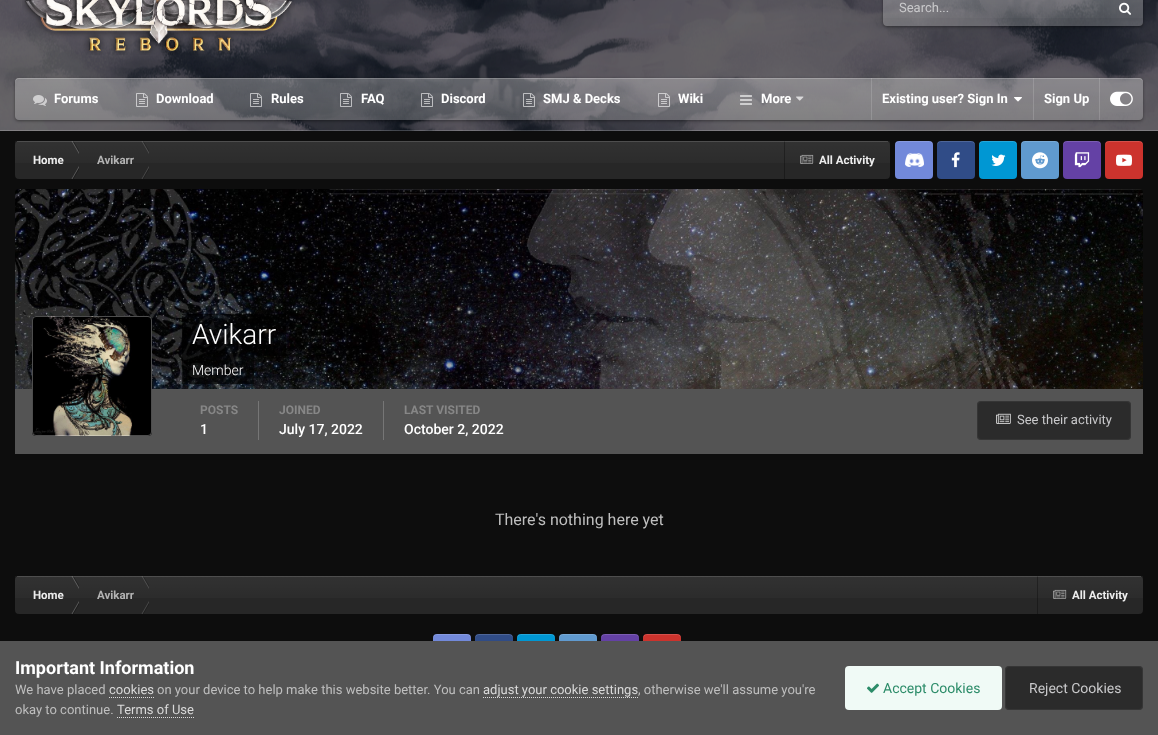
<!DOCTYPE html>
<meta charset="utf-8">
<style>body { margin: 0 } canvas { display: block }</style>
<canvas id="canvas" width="1158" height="735"></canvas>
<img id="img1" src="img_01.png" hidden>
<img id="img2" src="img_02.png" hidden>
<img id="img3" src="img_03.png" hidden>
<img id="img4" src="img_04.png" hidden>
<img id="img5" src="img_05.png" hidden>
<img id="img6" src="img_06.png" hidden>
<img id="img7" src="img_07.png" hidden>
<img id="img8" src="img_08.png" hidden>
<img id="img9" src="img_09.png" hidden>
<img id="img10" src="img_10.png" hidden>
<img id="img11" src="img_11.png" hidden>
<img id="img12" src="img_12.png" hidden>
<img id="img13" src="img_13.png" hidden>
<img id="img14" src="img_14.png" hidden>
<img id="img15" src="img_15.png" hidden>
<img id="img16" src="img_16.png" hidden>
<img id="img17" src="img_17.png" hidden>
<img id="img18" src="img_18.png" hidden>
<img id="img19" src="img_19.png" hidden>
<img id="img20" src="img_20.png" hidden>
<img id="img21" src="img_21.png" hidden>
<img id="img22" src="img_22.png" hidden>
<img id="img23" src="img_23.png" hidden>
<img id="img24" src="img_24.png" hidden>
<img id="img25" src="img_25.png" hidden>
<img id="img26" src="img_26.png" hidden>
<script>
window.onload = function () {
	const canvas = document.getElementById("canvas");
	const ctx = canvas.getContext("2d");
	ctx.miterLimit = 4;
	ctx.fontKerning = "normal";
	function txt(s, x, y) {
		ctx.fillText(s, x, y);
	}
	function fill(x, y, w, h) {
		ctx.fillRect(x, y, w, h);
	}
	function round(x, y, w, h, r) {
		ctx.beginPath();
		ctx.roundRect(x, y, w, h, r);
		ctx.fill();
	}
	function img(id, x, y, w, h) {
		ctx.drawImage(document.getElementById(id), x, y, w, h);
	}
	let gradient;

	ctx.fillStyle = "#0D0D0D";
	fill(0, 0, 1158, 735);
	img("img1", 0, 0, 1158, 131);
	img("img2", 0, 0, 1158, 131);
	ctx.fillStyle = "rgba(255, 255, 255, 0.2)";
	fill(0, 130, 1158, 1);
	img("img3", 22, 0, 273, 55);
	ctx.save();
	ctx.beginPath();
	ctx.moveTo(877, 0);
	ctx.lineTo(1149, 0);
	ctx.lineTo(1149, 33);
	ctx.lineTo(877, 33);
	ctx.closePath();
	ctx.moveTo(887, -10);
	ctx.lineTo(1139, -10);
	ctx.bezierCurveTo(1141, -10, 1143, -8, 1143, -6);
	ctx.lineTo(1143, 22);
	ctx.bezierCurveTo(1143, 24, 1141, 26, 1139, 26);
	ctx.lineTo(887, 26);
	ctx.bezierCurveTo(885, 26, 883, 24, 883, 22);
	ctx.lineTo(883, -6);
	ctx.bezierCurveTo(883, -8, 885, -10, 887, -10);
	ctx.closePath();
	ctx.clip("evenodd");
	ctx.fillStyle = "rgba(0, 0, 0, 0.4)";
	ctx.filter = "blur(1.5px)";
	ctx.beginPath();
	ctx.roundRect(883, -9, 260, 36, 4);
	ctx.fill();
	ctx.filter = "none";
	ctx.restore();
	ctx.fillStyle = "rgba(200, 200, 200, 0.3)";
	round(883, -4, 260, 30, 4);
	gradient = ctx.createLinearGradient(1013, -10, 1013, 26);
	gradient.addColorStop(0, "rgba(255, 255, 255, 0.1)");
	gradient.addColorStop(1, "rgba(255, 255, 255, 0)");
	ctx.fillStyle = gradient;
	fill(883, 0, 260, 18);
	img("img4", 1119, 2, 12, 13);
	ctx.save();
	ctx.beginPath();
	ctx.moveTo(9, 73);
	ctx.lineTo(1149, 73);
	ctx.lineTo(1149, 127);
	ctx.lineTo(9, 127);
	ctx.closePath();
	ctx.moveTo(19, 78);
	ctx.lineTo(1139, 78);
	ctx.bezierCurveTo(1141, 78, 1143, 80, 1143, 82);
	ctx.lineTo(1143, 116);
	ctx.bezierCurveTo(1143, 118, 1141, 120, 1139, 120);
	ctx.lineTo(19, 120);
	ctx.bezierCurveTo(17, 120, 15, 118, 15, 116);
	ctx.lineTo(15, 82);
	ctx.bezierCurveTo(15, 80, 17, 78, 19, 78);
	ctx.closePath();
	ctx.clip("evenodd");
	ctx.fillStyle = "rgba(0, 0, 0, 0.4)";
	ctx.filter = "blur(1.5px)";
	ctx.beginPath();
	ctx.roundRect(15, 79, 1128, 42, 4);
	ctx.fill();
	ctx.filter = "none";
	ctx.restore();
	ctx.fillStyle = "rgba(200, 200, 200, 0.3)";
	round(15, 78, 1128, 42, 4);
	gradient = ctx.createLinearGradient(579, 78, 579, 120);
	gradient.addColorStop(0, "rgba(255, 255, 255, 0.1)");
	gradient.addColorStop(1, "rgba(255, 255, 255, 0)");
	ctx.fillStyle = gradient;
	round(15, 78, 1128, 42, 4);
	ctx.fillStyle = "rgba(255, 255, 255, 0.2)";
	ctx.beginPath();
	ctx.moveTo(19, 79);
	ctx.lineTo(1139, 79);
	ctx.bezierCurveTo(1141, 79, 1143, 81, 1143, 83);
	ctx.bezierCurveTo(1143, 80, 1142, 78, 1139, 78);
	ctx.lineTo(19, 78);
	ctx.bezierCurveTo(16, 78, 15, 80, 15, 83);
	ctx.bezierCurveTo(15, 81, 17, 79, 19, 79);
	ctx.closePath();
	ctx.fill();
	img("img5", 33, 95, 14, 11);
	img("img6", 136, 93, 12, 14);
	img("img7", 250, 93, 12, 14);
	img("img8", 340, 93, 12, 14);
	img("img9", 421, 93, 12, 14);
	img("img10", 523, 93, 12, 14);
	img("img11", 658, 93, 12, 14);
	img("img12", 740, 95, 12, 10);
	img("img13", 796, 96, 8, 5);
	ctx.fillStyle = "rgba(255, 255, 255, 0.15)";
	fill(871, 78, 1, 42);
	img("img14", 1014, 97, 8, 5);
	fill(1033, 78, 1, 42);
	fill(1099, 78, 1, 42);
	img("img15", 1110, 91, 23, 15);
	ctx.fillStyle = "#272727";
	round(15, 141, 875, 38, 4);
	gradient = ctx.createLinearGradient(453, 141, 453, 179);
	gradient.addColorStop(0, "rgba(255, 255, 255, 0.05)");
	gradient.addColorStop(1, "rgba(255, 255, 255, 0)");
	ctx.fillStyle = gradient;
	fill(15, 141, 875, 22);
	ctx.save();
	ctx.beginPath();
	ctx.rect(15, 141, 64, 38);
	ctx.clip();
	ctx.fillStyle = "rgba(255, 255, 255, 0.25)";
	ctx.beginPath();
	ctx.moveTo(71.5, 141);
	ctx.lineTo(72.5, 141);
	ctx.lineTo(83.5, 160);
	ctx.lineTo(82.5, 160);
	ctx.closePath();
	ctx.fill();
	ctx.fillStyle = "rgba(0, 0, 0, 0.3)";
	ctx.beginPath();
	ctx.moveTo(72.5, 141);
	ctx.lineTo(73.5, 141);
	ctx.lineTo(84.5, 160);
	ctx.lineTo(83.5, 160);
	ctx.closePath();
	ctx.fill();
	ctx.restore();
	ctx.save();
	ctx.beginPath();
	ctx.rect(79, 141, 70, 38);
	ctx.clip();
	ctx.fillStyle = "rgba(255, 255, 255, 0.17)";
	ctx.beginPath();
	ctx.moveTo(141.5, 141);
	ctx.lineTo(142.5, 141);
	ctx.lineTo(153.5, 160);
	ctx.lineTo(152.5, 160);
	ctx.closePath();
	ctx.fill();
	ctx.fillStyle = "rgba(0, 0, 0, 0.21)";
	ctx.beginPath();
	ctx.moveTo(142.5, 141);
	ctx.lineTo(143.5, 141);
	ctx.lineTo(154.5, 160);
	ctx.lineTo(153.5, 160);
	ctx.closePath();
	ctx.fill();
	ctx.restore();
	ctx.fillStyle = "rgba(0, 0, 0, 0.3)";
	fill(784, 141, 1, 38);
	ctx.fillStyle = "rgba(191, 191, 191, 0.2)";
	fill(17, 141, 871, 1);
	ctx.save();
	ctx.beginPath();
	ctx.rect(15, 141, 64, 38);
	ctx.clip();
	ctx.fillStyle = "rgba(255, 255, 255, 0.25)";
	ctx.beginPath();
	ctx.moveTo(71.5, 179);
	ctx.lineTo(72.5, 179);
	ctx.lineTo(83.5, 160);
	ctx.lineTo(82.5, 160);
	ctx.closePath();
	ctx.fill();
	ctx.fillStyle = "rgba(0, 0, 0, 0.3)";
	ctx.beginPath();
	ctx.moveTo(72.5, 179);
	ctx.lineTo(73.5, 179);
	ctx.lineTo(84.5, 160);
	ctx.lineTo(83.5, 160);
	ctx.closePath();
	ctx.fill();
	ctx.restore();
	ctx.save();
	ctx.beginPath();
	ctx.rect(79, 141, 70, 38);
	ctx.clip();
	ctx.fillStyle = "rgba(255, 255, 255, 0.17)";
	ctx.beginPath();
	ctx.moveTo(141.5, 179);
	ctx.lineTo(142.5, 179);
	ctx.lineTo(153.5, 160);
	ctx.lineTo(152.5, 160);
	ctx.closePath();
	ctx.fill();
	ctx.fillStyle = "rgba(0, 0, 0, 0.21)";
	ctx.beginPath();
	ctx.moveTo(142.5, 179);
	ctx.lineTo(143.5, 179);
	ctx.lineTo(154.5, 160);
	ctx.lineTo(153.5, 160);
	ctx.closePath();
	ctx.fill();
	ctx.restore();
	img("img16", 800, 154, 14, 10);
	ctx.fillStyle = "#7289DA";
	round(895, 141, 38, 38, 4);
	ctx.fillStyle = "rgba(255, 255, 255, 0.15)";
	ctx.beginPath();
	ctx.moveTo(899, 142);
	ctx.bezierCurveTo(897, 142, 895, 144, 895, 146);
	ctx.bezierCurveTo(895, 140, 899.5, 141, 904, 141);
	ctx.lineTo(924, 141);
	ctx.bezierCurveTo(928.5, 141, 933, 140, 933, 146);
	ctx.bezierCurveTo(933, 144, 931, 142, 929, 142);
	ctx.closePath();
	ctx.fill();
	img("img17", 905, 153, 19, 14);
	ctx.fillStyle = "#304C87";
	round(937, 141, 38, 38, 4);
	ctx.fillStyle = "rgba(255, 255, 255, 0.15)";
	ctx.beginPath();
	ctx.moveTo(941, 142);
	ctx.bezierCurveTo(939, 142, 937, 144, 937, 146);
	ctx.bezierCurveTo(937, 140, 941.5, 141, 946, 141);
	ctx.lineTo(966, 141);
	ctx.bezierCurveTo(970.5, 141, 975, 140, 975, 146);
	ctx.bezierCurveTo(975, 144, 973, 142, 971, 142);
	ctx.closePath();
	ctx.fill();
	img("img18", 951, 152, 9, 16);
	ctx.fillStyle = "#0097D3";
	round(979, 141, 38, 38, 4);
	ctx.fillStyle = "rgba(255, 255, 255, 0.15)";
	ctx.beginPath();
	ctx.moveTo(983, 142);
	ctx.bezierCurveTo(981, 142, 979, 144, 979, 146);
	ctx.bezierCurveTo(979, 140, 983.5, 141, 988, 141);
	ctx.lineTo(1008, 141);
	ctx.bezierCurveTo(1012.5, 141, 1017, 140, 1017, 146);
	ctx.bezierCurveTo(1017, 144, 1015, 142, 1013, 142);
	ctx.closePath();
	ctx.fill();
	img("img19", 991, 154, 15, 12);
	ctx.fillStyle = "#609ACF";
	round(1021, 141, 38, 38, 4);
	ctx.fillStyle = "rgba(255, 255, 255, 0.15)";
	ctx.beginPath();
	ctx.moveTo(1025, 142);
	ctx.bezierCurveTo(1023, 142, 1021, 144, 1021, 146);
	ctx.bezierCurveTo(1021, 140, 1025.5, 141, 1030, 141);
	ctx.lineTo(1050, 141);
	ctx.bezierCurveTo(1054.5, 141, 1059, 140, 1059, 146);
	ctx.bezierCurveTo(1059, 144, 1057, 142, 1055, 142);
	ctx.closePath();
	ctx.fill();
	img("img20", 1032, 152, 16, 17);
	ctx.fillStyle = "#6441A5";
	round(1063, 141, 38, 38, 4);
	ctx.fillStyle = "rgba(255, 255, 255, 0.15)";
	ctx.beginPath();
	ctx.moveTo(1067, 142);
	ctx.bezierCurveTo(1065, 142, 1063, 144, 1063, 146);
	ctx.bezierCurveTo(1063, 140, 1067.5, 141, 1072, 141);
	ctx.lineTo(1092, 141);
	ctx.bezierCurveTo(1096.5, 141, 1101, 140, 1101, 146);
	ctx.bezierCurveTo(1101, 144, 1099, 142, 1097, 142);
	ctx.closePath();
	ctx.fill();
	img("img21", 1074, 152, 16, 16);
	ctx.fillStyle = "#CC332D";
	round(1105, 141, 38, 38, 4);
	ctx.fillStyle = "rgba(255, 255, 255, 0.15)";
	ctx.beginPath();
	ctx.moveTo(1109, 142);
	ctx.bezierCurveTo(1107, 142, 1105, 144, 1105, 146);
	ctx.bezierCurveTo(1105, 140, 1109.5, 141, 1114, 141);
	ctx.lineTo(1134, 141);
	ctx.bezierCurveTo(1138.5, 141, 1143, 140, 1143, 146);
	ctx.bezierCurveTo(1143, 144, 1141, 142, 1139, 142);
	ctx.closePath();
	ctx.fill();
	img("img22", 1116, 154, 16, 12);
	img("img23", 15, 189, 1128, 200);
	ctx.fillStyle = "#545454";
	fill(15, 389, 1128, 65);
	img("img24", 32, 316, 120, 120);
	ctx.beginPath();
	ctx.roundRect(32.5, 316.5, 119, 119, 3.5);
	ctx.strokeStyle = "rgba(255, 255, 255, 0.3)";
	ctx.stroke();
	ctx.fillStyle = "rgba(0, 0, 0, 0.6)";
	fill(182, 314, 104, 42);
	fill(182, 356, 72, 28);
	ctx.fillStyle = "#767676";
	fill(258, 401, 1, 39);
	fill(383, 401, 1, 39);
	ctx.fillStyle = "#2B2B2B";
	round(977, 401, 154, 39, 4);
	ctx.beginPath();
	ctx.roundRect(977.5, 401.5, 153, 38, 3.5);
	ctx.strokeStyle = "rgba(204, 204, 204, 0.07)";
	ctx.stroke();
	img("img25", 996, 413, 15, 11);
	ctx.fillStyle = "#272727";
	round(15, 576, 1128, 38, 4);
	gradient = ctx.createLinearGradient(579, 576, 579, 614);
	gradient.addColorStop(0, "rgba(255, 255, 255, 0.05)");
	gradient.addColorStop(1, "rgba(255, 255, 255, 0)");
	ctx.fillStyle = gradient;
	fill(15, 576, 1128, 22);
	ctx.save();
	ctx.beginPath();
	ctx.rect(15, 576, 64, 38);
	ctx.clip();
	ctx.fillStyle = "rgba(255, 255, 255, 0.25)";
	ctx.beginPath();
	ctx.moveTo(71.5, 576);
	ctx.lineTo(72.5, 576);
	ctx.lineTo(83.5, 595);
	ctx.lineTo(82.5, 595);
	ctx.closePath();
	ctx.fill();
	ctx.fillStyle = "rgba(0, 0, 0, 0.3)";
	ctx.beginPath();
	ctx.moveTo(72.5, 576);
	ctx.lineTo(73.5, 576);
	ctx.lineTo(84.5, 595);
	ctx.lineTo(83.5, 595);
	ctx.closePath();
	ctx.fill();
	ctx.restore();
	ctx.save();
	ctx.beginPath();
	ctx.rect(79, 576, 70, 38);
	ctx.clip();
	ctx.fillStyle = "rgba(255, 255, 255, 0.17)";
	ctx.beginPath();
	ctx.moveTo(141.5, 576);
	ctx.lineTo(142.5, 576);
	ctx.lineTo(153.5, 595);
	ctx.lineTo(152.5, 595);
	ctx.closePath();
	ctx.fill();
	ctx.fillStyle = "rgba(0, 0, 0, 0.21)";
	ctx.beginPath();
	ctx.moveTo(142.5, 576);
	ctx.lineTo(143.5, 576);
	ctx.lineTo(154.5, 595);
	ctx.lineTo(153.5, 595);
	ctx.closePath();
	ctx.fill();
	ctx.restore();
	ctx.fillStyle = "rgba(0, 0, 0, 0.3)";
	fill(1037, 576, 1, 38);
	ctx.fillStyle = "rgba(191, 191, 191, 0.2)";
	fill(17, 576, 1124, 1);
	ctx.save();
	ctx.beginPath();
	ctx.rect(15, 576, 64, 38);
	ctx.clip();
	ctx.fillStyle = "rgba(255, 255, 255, 0.25)";
	ctx.beginPath();
	ctx.moveTo(71.5, 614);
	ctx.lineTo(72.5, 614);
	ctx.lineTo(83.5, 595);
	ctx.lineTo(82.5, 595);
	ctx.closePath();
	ctx.fill();
	ctx.fillStyle = "rgba(0, 0, 0, 0.3)";
	ctx.beginPath();
	ctx.moveTo(72.5, 614);
	ctx.lineTo(73.5, 614);
	ctx.lineTo(84.5, 595);
	ctx.lineTo(83.5, 595);
	ctx.closePath();
	ctx.fill();
	ctx.restore();
	ctx.save();
	ctx.beginPath();
	ctx.rect(79, 576, 70, 38);
	ctx.clip();
	ctx.fillStyle = "rgba(255, 255, 255, 0.17)";
	ctx.beginPath();
	ctx.moveTo(141.5, 614);
	ctx.lineTo(142.5, 614);
	ctx.lineTo(153.5, 595);
	ctx.lineTo(152.5, 595);
	ctx.closePath();
	ctx.fill();
	ctx.fillStyle = "rgba(0, 0, 0, 0.21)";
	ctx.beginPath();
	ctx.moveTo(142.5, 614);
	ctx.lineTo(143.5, 614);
	ctx.lineTo(154.5, 595);
	ctx.lineTo(153.5, 595);
	ctx.closePath();
	ctx.fill();
	ctx.restore();
	img("img16", 1053, 589, 14, 10);
	ctx.fillStyle = "#7289DA";
	round(433, 634, 38, 38, 4);
	ctx.fillStyle = "rgba(255, 255, 255, 0.15)";
	ctx.beginPath();
	ctx.moveTo(437, 635);
	ctx.bezierCurveTo(435, 635, 433, 637, 433, 639);
	ctx.bezierCurveTo(433, 633, 437.5, 634, 442, 634);
	ctx.lineTo(462, 634);
	ctx.bezierCurveTo(466.5, 634, 471, 633, 471, 639);
	ctx.bezierCurveTo(471, 637, 469, 635, 467, 635);
	ctx.closePath();
	ctx.fill();
	ctx.fillStyle = "#304C87";
	round(475, 634, 38, 38, 4);
	ctx.fillStyle = "rgba(255, 255, 255, 0.15)";
	ctx.beginPath();
	ctx.moveTo(479, 635);
	ctx.bezierCurveTo(477, 635, 475, 637, 475, 639);
	ctx.bezierCurveTo(475, 633, 479.5, 634, 484, 634);
	ctx.lineTo(504, 634);
	ctx.bezierCurveTo(508.5, 634, 513, 633, 513, 639);
	ctx.bezierCurveTo(513, 637, 511, 635, 509, 635);
	ctx.closePath();
	ctx.fill();
	ctx.fillStyle = "#0097D3";
	round(517, 634, 38, 38, 4);
	ctx.fillStyle = "rgba(255, 255, 255, 0.15)";
	ctx.beginPath();
	ctx.moveTo(521, 635);
	ctx.bezierCurveTo(519, 635, 517, 637, 517, 639);
	ctx.bezierCurveTo(517, 633, 521.5, 634, 526, 634);
	ctx.lineTo(546, 634);
	ctx.bezierCurveTo(550.5, 634, 555, 633, 555, 639);
	ctx.bezierCurveTo(555, 637, 553, 635, 551, 635);
	ctx.closePath();
	ctx.fill();
	ctx.fillStyle = "#609ACF";
	round(559, 634, 38, 38, 4);
	ctx.fillStyle = "rgba(255, 255, 255, 0.15)";
	ctx.beginPath();
	ctx.moveTo(563, 635);
	ctx.bezierCurveTo(561, 635, 559, 637, 559, 639);
	ctx.bezierCurveTo(559, 633, 563.5, 634, 568, 634);
	ctx.lineTo(588, 634);
	ctx.bezierCurveTo(592.5, 634, 597, 633, 597, 639);
	ctx.bezierCurveTo(597, 637, 595, 635, 593, 635);
	ctx.closePath();
	ctx.fill();
	ctx.fillStyle = "#6441A5";
	round(601, 634, 38, 38, 4);
	ctx.fillStyle = "rgba(255, 255, 255, 0.15)";
	ctx.beginPath();
	ctx.moveTo(605, 635);
	ctx.bezierCurveTo(603, 635, 601, 637, 601, 639);
	ctx.bezierCurveTo(601, 633, 605.5, 634, 610, 634);
	ctx.lineTo(630, 634);
	ctx.bezierCurveTo(634.5, 634, 639, 633, 639, 639);
	ctx.bezierCurveTo(639, 637, 637, 635, 635, 635);
	ctx.closePath();
	ctx.fill();
	ctx.fillStyle = "#CC332D";
	round(643, 634, 38, 38, 4);
	ctx.fillStyle = "rgba(255, 255, 255, 0.15)";
	ctx.beginPath();
	ctx.moveTo(647, 635);
	ctx.bezierCurveTo(645, 635, 643, 637, 643, 639);
	ctx.bezierCurveTo(643, 633, 647.5, 634, 652, 634);
	ctx.lineTo(672, 634);
	ctx.bezierCurveTo(676.5, 634, 681, 633, 681, 639);
	ctx.bezierCurveTo(681, 637, 679, 635, 677, 635);
	ctx.closePath();
	ctx.fill();
	ctx.fillStyle = "#545454";
	fill(0, 641, 1158, 94);
	ctx.beginPath();
	ctx.moveTo(109, 697.5);
	ctx.lineTo(154, 697.5);
	ctx.strokeStyle = "#DADADA";
	ctx.setLineDash([1, 1]);
	ctx.stroke();
	ctx.beginPath();
	ctx.moveTo(483, 697.5);
	ctx.lineTo(638, 697.5);
	ctx.stroke();
	ctx.beginPath();
	ctx.moveTo(117, 717.5);
	ctx.lineTo(194, 717.5);
	ctx.stroke();
	ctx.fillStyle = "#F0FAF6";
	round(845, 666, 157, 44, 4);
	img("img26", 867, 683, 12, 10);
	ctx.fillStyle = "#2B2B2B";
	round(1005, 666, 138, 44, 4);
	ctx.beginPath();
	ctx.roundRect(1005.5, 666.5, 137, 43, 3.5);
	ctx.strokeStyle = "rgba(204, 204, 204, 0.07)";
	ctx.setLineDash([]);
	ctx.stroke();
	ctx.font = "13px Roboto";
	ctx.fillStyle = "#C9C9CB";
	txt("Search...", 899, 12);
	ctx.font = "bold 13px Roboto";
	ctx.fillStyle = "#FFFFFF";
	txt("Forums", 54, 103);
	txt("Download", 156, 103);
	txt("Rules", 271, 103);
	txt("FAQ", 361, 103);
	txt("Discord", 441, 103);
	txt("SMJ & Decks", 543, 103);
	txt("Wiki", 678, 103);
	txt("More", 761, 103);
	txt("Existing user? Sign In", 882, 103);
	txt("Sign Up", 1044, 103);
	ctx.font = "bold 11.5px Roboto";
	ctx.fillStyle = "#EDEDED";
	txt("Home", 33, 164);
	ctx.fillStyle = "#B3B3B3";
	txt("Avikarr", 97, 164);
	ctx.fillStyle = "#EDEDED";
	txt("All Activity", 819, 164);
	ctx.font = "300 28px Roboto";
	ctx.fillStyle = "#FFFFFF";
	txt("Avikarr", 192, 344);
	ctx.font = "300 14px Roboto";
	txt("Member", 192, 375);
	ctx.font = "bold 12px Roboto";
	ctx.fillStyle = "#878787";
	txt("POSTS", 200, 414);
	ctx.font = "500 14px Roboto";
	ctx.fillStyle = "#FFFFFF";
	txt("1", 200, 434);
	ctx.font = "bold 12px Roboto";
	ctx.fillStyle = "#878787";
	txt("JOINED", 279, 414);
	ctx.font = "500 14px Roboto";
	ctx.fillStyle = "#FFFFFF";
	txt("July 17, 2022", 279, 434);
	ctx.font = "bold 12px Roboto";
	ctx.fillStyle = "#878787";
	txt("LAST VISITED", 404, 414);
	ctx.font = "500 14px Roboto";
	ctx.fillStyle = "#FFFFFF";
	txt("October 2, 2022", 404, 434);
	ctx.font = "13px Roboto";
	ctx.fillStyle = "#C9C9CB";
	txt("See their activity", 1017, 424);
	ctx.font = "16px Roboto";
	ctx.fillStyle = "#BFBFBF";
	txt("There's nothing here yet", 495, 525);
	ctx.font = "bold 11.5px Roboto";
	ctx.fillStyle = "#EDEDED";
	txt("Home", 33, 599);
	ctx.fillStyle = "#B3B3B3";
	txt("Avikarr", 97, 599);
	ctx.fillStyle = "#EDEDED";
	txt("All Activity", 1072, 599);
	ctx.font = "bold 18px Roboto";
	ctx.fillStyle = "#FFFFFF";
	txt("Important Information", 15, 674);
	ctx.font = "13px Roboto";
	ctx.fillStyle = "#BFBFBF";
	txt("We have placed", 15, 694);
	ctx.fillStyle = "#DADADA";
	txt("cookies", 109, 694);
	ctx.fillStyle = "#BFBFBF";
	txt("on your device to help make this website better. You can", 157, 694);
	ctx.fillStyle = "#DADADA";
	txt("adjust your cookie settings", 483, 694);
	ctx.fillStyle = "#BFBFBF";
	txt(", otherwise we'll assume you're", 638, 694);
	txt("okay to continue.", 15, 714);
	ctx.fillStyle = "#DADADA";
	txt("Terms of Use", 117, 714);
	ctx.font = "14px Roboto";
	ctx.fillStyle = "#2C8C69";
	txt("Accept Cookies", 883, 693);
	ctx.fillStyle = "#C9C9CB";
	txt("Reject Cookies", 1029, 693);
};
</script>
